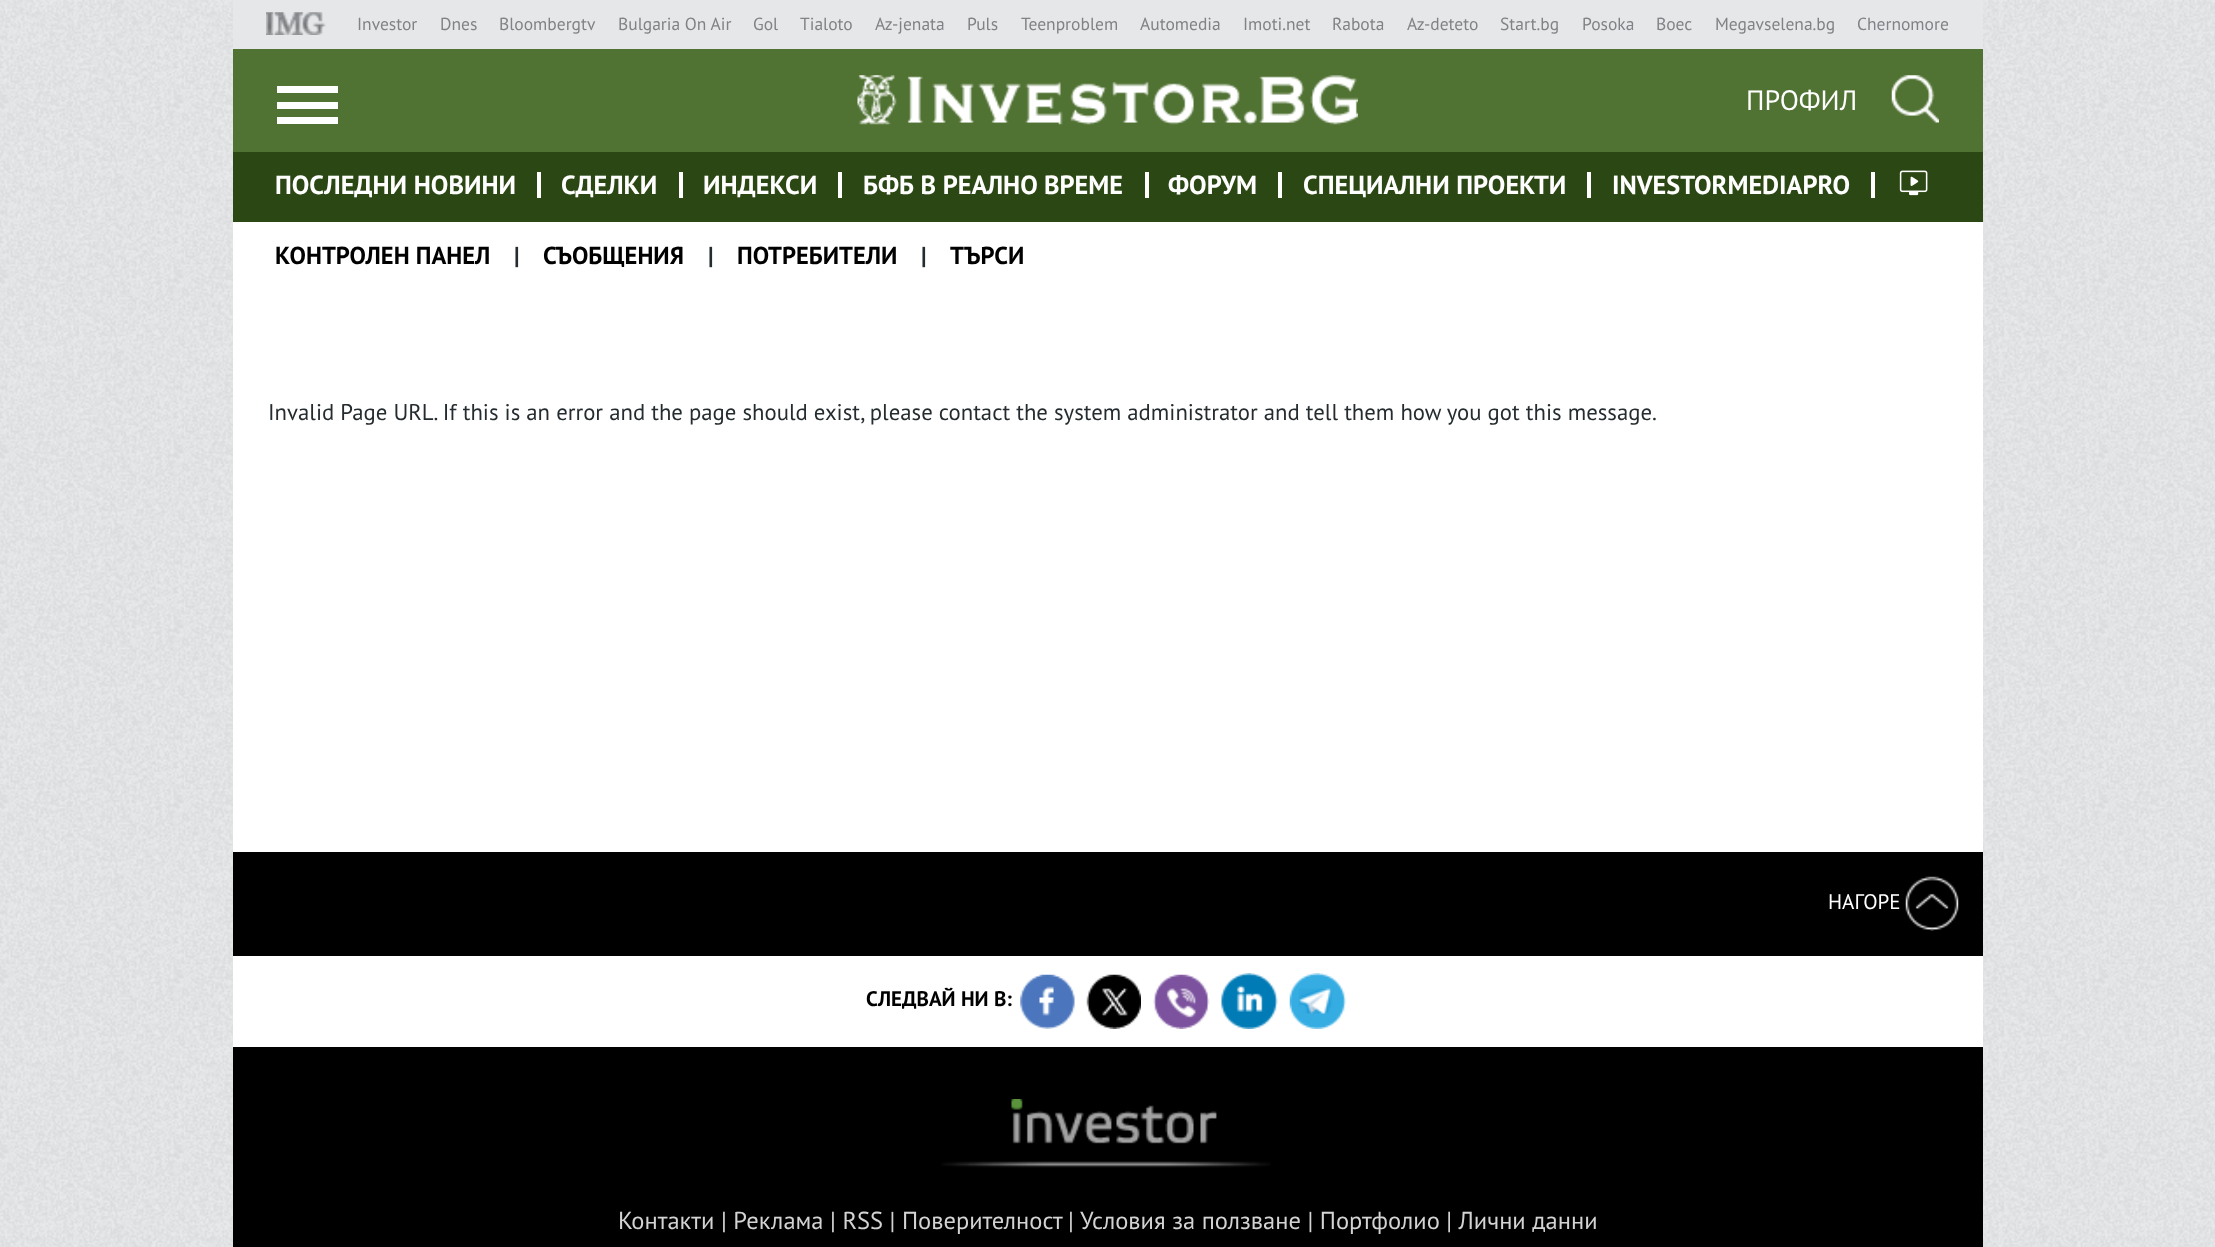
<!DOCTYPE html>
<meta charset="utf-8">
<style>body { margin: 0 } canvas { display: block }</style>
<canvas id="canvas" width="2215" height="1247"></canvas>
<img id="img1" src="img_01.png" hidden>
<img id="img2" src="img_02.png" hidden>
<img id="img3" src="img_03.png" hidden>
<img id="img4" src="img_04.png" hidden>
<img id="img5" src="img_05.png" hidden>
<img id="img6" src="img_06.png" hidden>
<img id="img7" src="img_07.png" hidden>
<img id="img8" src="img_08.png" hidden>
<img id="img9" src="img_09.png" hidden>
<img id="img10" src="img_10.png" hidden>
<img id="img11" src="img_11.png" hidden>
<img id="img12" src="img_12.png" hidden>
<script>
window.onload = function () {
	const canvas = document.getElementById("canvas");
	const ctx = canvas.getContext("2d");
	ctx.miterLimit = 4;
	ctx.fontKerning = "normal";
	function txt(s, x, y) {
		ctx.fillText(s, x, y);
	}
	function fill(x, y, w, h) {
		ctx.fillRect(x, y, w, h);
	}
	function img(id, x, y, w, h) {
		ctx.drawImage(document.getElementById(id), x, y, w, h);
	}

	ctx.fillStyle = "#FFFFFF";
	fill(0, 0, 2215, 1247);
	img("img1", 0, 0, 2215, 1247);
	ctx.fillStyle = "#E6E7E8";
	fill(233, 0, 1750, 49);
	img("img2", 266, 12, 60, 23);
	ctx.fillStyle = "#FFFFFF";
	fill(233, 222, 1750, 630);
	ctx.fillStyle = "#507233";
	fill(233, 49, 1750, 103);
	ctx.fillStyle = "#FFFFFF";
	fill(277, 86, 61, 7);
	fill(277, 102, 61, 7);
	fill(277, 117, 61, 7);
	img("img3", 857, 75, 501, 50);
	img("img4", 1891, 75, 48, 48);
	ctx.fillStyle = "#2B4713";
	fill(233, 152, 1750, 70);
	ctx.fillStyle = "#FFFFFF";
	fill(537, 172, 4, 26);
	fill(679, 172, 4, 26);
	fill(838, 172, 4, 26);
	fill(1145, 172, 4, 26);
	fill(1278, 172, 4, 26);
	fill(1587, 172, 4, 26);
	fill(1871, 172, 4, 26);
	img("img5", 1899, 170, 29, 26);
	ctx.fillStyle = "#000000";
	fill(233, 852, 1750, 395);
	img("img6", 1905, 876, 54, 55);
	ctx.fillStyle = "#FFFFFF";
	fill(233, 956, 1750, 91);
	img("img7", 1020, 974, 55, 55);
	img("img8", 1086, 974, 55, 55);
	img("img9", 1153, 974, 57, 55);
	img("img10", 1221, 973, 57, 56);
	img("img11", 1289, 973, 57, 56);
	img("img12", 941, 1099, 330, 69);
	ctx.font = "17.5px PT Sans";
	ctx.fillStyle = "#808285";
	txt("Investor", 357, 30);
	txt("Dnes", 440, 30);
	txt("Bloombergtv", 499, 30);
	txt("Bulgaria On Air", 618, 30);
	txt("Gol", 753, 30);
	txt("Tialoto", 800, 30);
	txt("Az-jenata", 875, 30);
	txt("Puls", 967, 30);
	txt("Teenproblem", 1021, 30);
	txt("Automedia", 1140, 30);
	txt("Imoti.net", 1243, 30);
	txt("Rabota", 1332, 30);
	txt("Az-deteto", 1407, 30);
	txt("Start.bg", 1500, 30);
	txt("Posoka", 1582, 30);
	txt("Boec", 1656, 30);
	txt("Megavselena.bg", 1715, 30);
	txt("Chernomore", 1857, 30);
	ctx.font = "28px PT Sans";
	ctx.fillStyle = "#FFFFFF";
	txt("ПРОФИЛ", 1746, 110);
	ctx.font = "bold 26.25px PT Sans";
	txt("ПОСЛЕДНИ НОВИНИ", 275, 194);
	txt("СДЕЛКИ", 561, 194);
	txt("ИНДЕКСИ", 703, 194);
	txt("БФБ В РЕАЛНО ВРЕМЕ", 863, 194);
	txt("ФОРУМ", 1168, 194);
	txt("СПЕЦИАЛНИ ПРОЕКТИ", 1303, 194);
	txt("INVESTORMEDIAPRO", 1612, 194);
	ctx.font = "bold 24.5px PT Sans";
	ctx.fillStyle = "#000000";
	txt("КОНТРОЛЕН ПАНЕЛ", 275, 264);
	ctx.fillStyle = "#252C2F";
	txt("|", 514, 264);
	ctx.fillStyle = "#000000";
	txt("СЪОБЩЕНИЯ", 543, 264);
	ctx.fillStyle = "#252C2F";
	txt("|", 708, 264);
	ctx.fillStyle = "#000000";
	txt("ПОТРЕБИТЕЛИ", 737, 264);
	ctx.fillStyle = "#252C2F";
	txt("|", 921, 264);
	ctx.fillStyle = "#000000";
	txt("ТЪРСИ", 950, 264);
	ctx.font = "22.75px PT Sans";
	ctx.fillStyle = "#252C2F";
	txt("Invalid Page URL. If this is an error and the page should exist, please contact the system administrator and tell them how you got this message.", 268, 420);
	ctx.font = "21px PT Sans";
	ctx.fillStyle = "#FFFFFF";
	txt("НАГОРЕ", 1828, 909);
	ctx.font = "bold 21px PT Sans";
	ctx.fillStyle = "#000000";
	txt("СЛЕДВАЙ НИ В:", 866, 1006);
	ctx.font = "24.5px PT Sans";
	ctx.fillStyle = "#D3D3D3";
	txt("Контакти | Реклама | RSS | Поверителност", 618, 1229);
	txt("|", 1068, 1229);
	txt("Условия за ползване | Портфолио | Лични данни", 1080, 1229);
};
</script>
